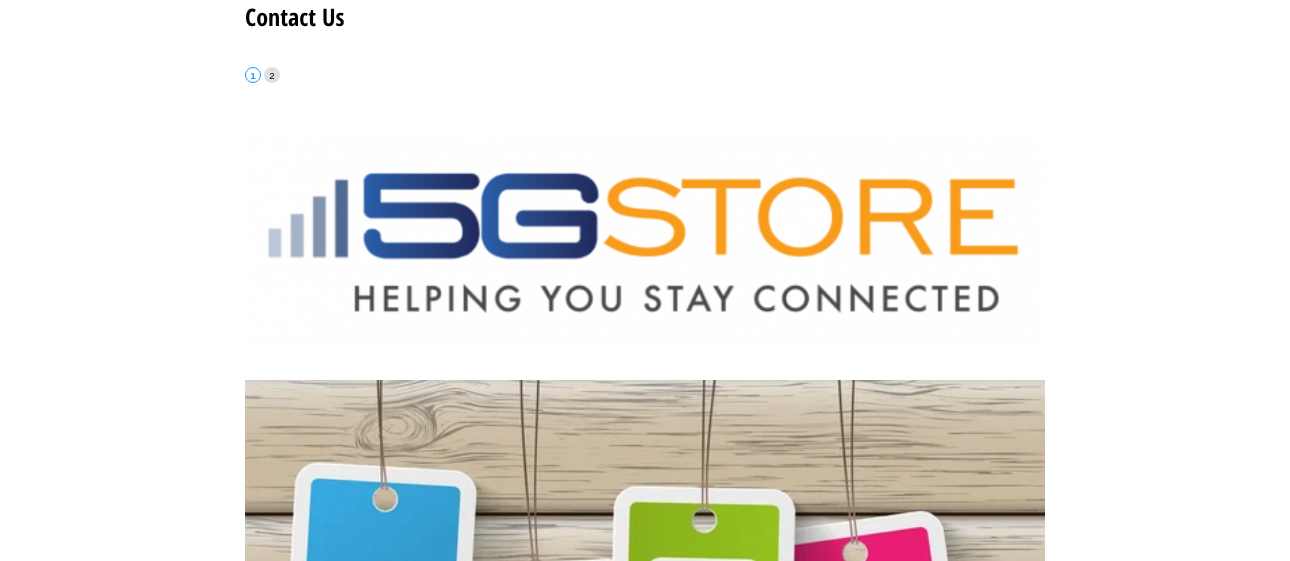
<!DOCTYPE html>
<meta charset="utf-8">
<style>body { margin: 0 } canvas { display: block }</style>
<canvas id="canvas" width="1290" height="561"></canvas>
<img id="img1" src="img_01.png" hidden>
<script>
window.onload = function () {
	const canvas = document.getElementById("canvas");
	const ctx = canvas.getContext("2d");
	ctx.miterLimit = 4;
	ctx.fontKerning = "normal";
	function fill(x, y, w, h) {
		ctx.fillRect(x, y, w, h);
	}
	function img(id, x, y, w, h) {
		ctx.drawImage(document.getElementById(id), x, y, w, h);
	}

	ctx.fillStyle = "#FFFFFF";
	fill(0, 0, 1290, 561);
	img("img1", 245, 8, 800, 553);
};
</script>
